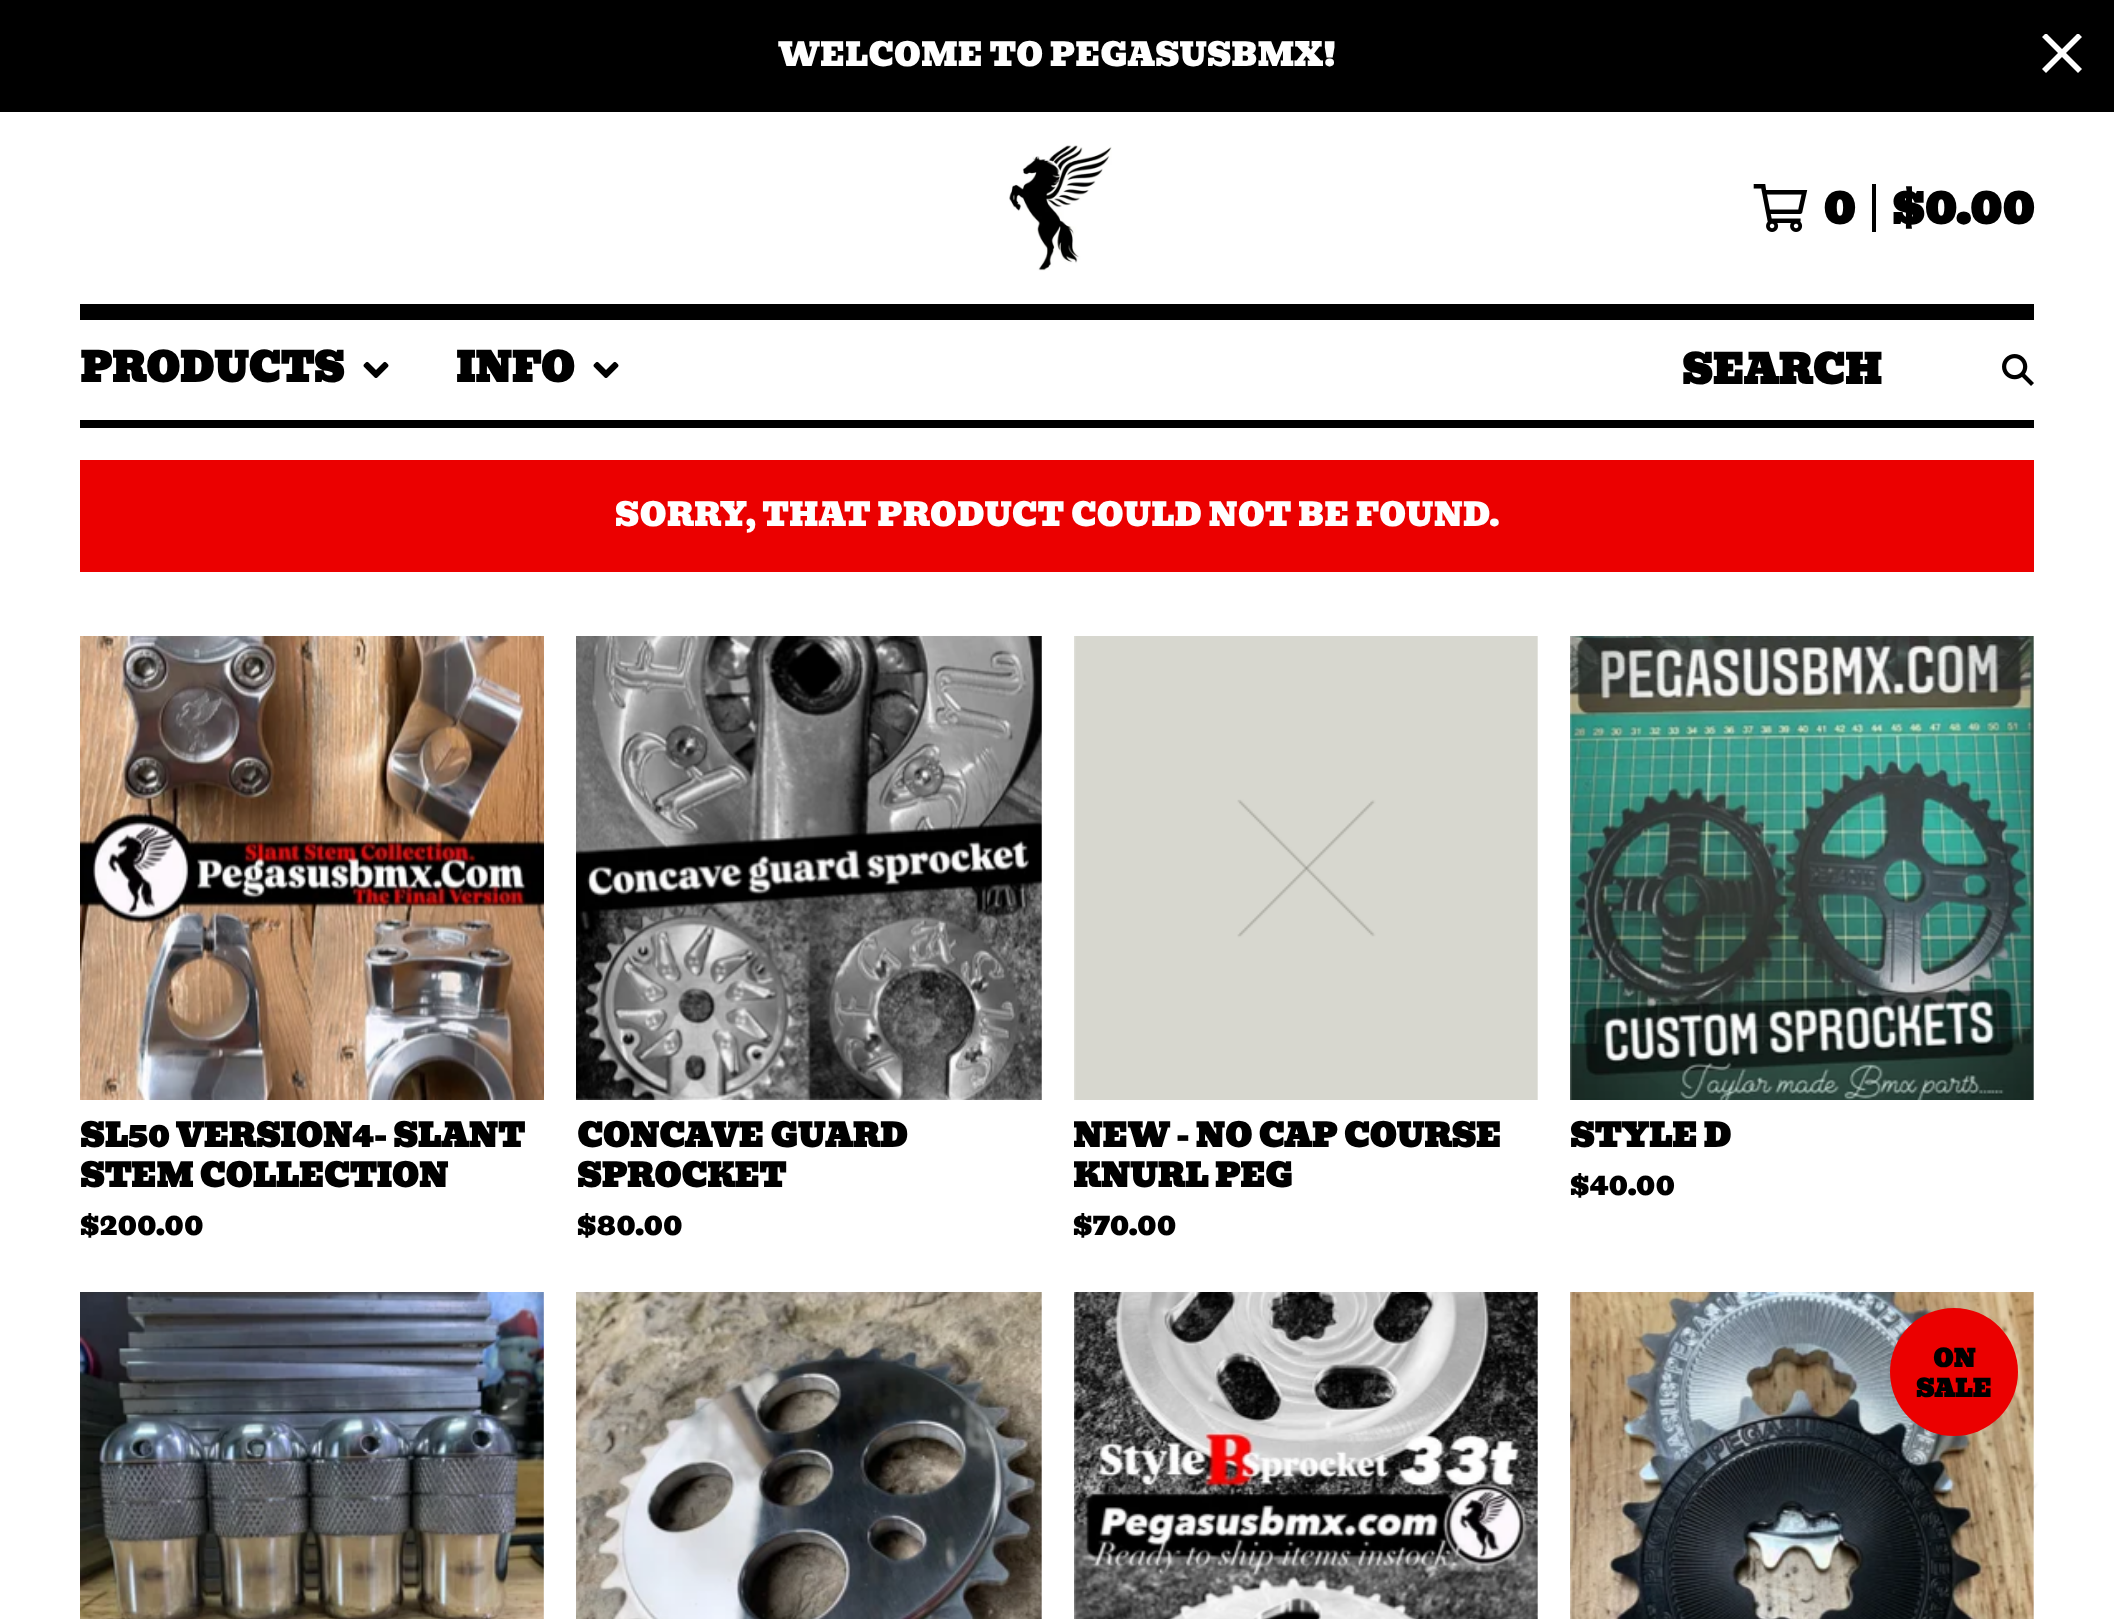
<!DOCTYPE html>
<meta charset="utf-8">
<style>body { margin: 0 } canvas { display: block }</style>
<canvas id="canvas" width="2114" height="1619"></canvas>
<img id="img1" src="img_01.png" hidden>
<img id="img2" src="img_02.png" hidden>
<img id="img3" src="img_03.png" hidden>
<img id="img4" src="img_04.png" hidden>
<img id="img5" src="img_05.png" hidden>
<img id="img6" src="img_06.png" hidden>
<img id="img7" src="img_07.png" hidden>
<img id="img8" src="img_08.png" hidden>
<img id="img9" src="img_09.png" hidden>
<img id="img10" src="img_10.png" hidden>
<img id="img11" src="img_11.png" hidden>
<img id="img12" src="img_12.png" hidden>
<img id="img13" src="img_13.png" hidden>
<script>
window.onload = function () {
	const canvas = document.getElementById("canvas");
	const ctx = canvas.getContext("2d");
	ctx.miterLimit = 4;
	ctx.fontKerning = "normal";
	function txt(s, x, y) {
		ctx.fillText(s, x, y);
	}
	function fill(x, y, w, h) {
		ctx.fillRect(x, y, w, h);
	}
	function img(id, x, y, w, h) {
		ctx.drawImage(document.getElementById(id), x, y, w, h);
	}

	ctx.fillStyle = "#FFFFFF";
	fill(0, 0, 2114, 1619);
	img("img1", 2033, 1472, 10, 147);
	ctx.fillStyle = "#000000";
	fill(0, 0, 2114, 112);
	ctx.save();
	ctx.beginPath();
	ctx.rect(2042, 34, 40, 40);
	ctx.clip();
	ctx.fillStyle = "#FFFFFF";
	ctx.beginPath();
	ctx.moveTo(2078, 33);
	ctx.lineTo(2082, 37);
	ctx.lineTo(2066, 53);
	ctx.lineTo(2082, 69);
	ctx.lineTo(2078, 73);
	ctx.lineTo(2062, 57);
	ctx.lineTo(2046, 73);
	ctx.lineTo(2042, 69);
	ctx.lineTo(2058, 53);
	ctx.lineTo(2042, 37);
	ctx.lineTo(2046, 33);
	ctx.lineTo(2062, 49);
	ctx.closePath();
	ctx.fill("evenodd");
	ctx.restore();
	fill(80, 304, 1954, 16);
	img("img2", 1009, 145, 103, 126);
	img("img3", 1753, 184, 55, 48);
	fill(1872, 184, 4, 48);
	fill(80, 420, 1954, 8);
	img("img4", 363, 361, 26, 17);
	img("img4", 593, 361, 26, 17);
	img("img5", 2002, 354, 32, 32);
	ctx.fillStyle = "#EB0000";
	fill(80, 460, 1954, 112);
	img("img6", 80, 636, 464, 464);
	img("img7", 576, 636, 466, 464);
	img("img8", 1074, 636, 464, 464);
	img("img9", 1570, 636, 464, 464);
	img("img10", 80, 1292, 464, 327);
	img("img11", 576, 1292, 466, 327);
	img("img12", 1074, 1292, 464, 327);
	img("img13", 1570, 1292, 464, 327);
	ctx.beginPath();
	ctx.arc(1954, 1372, 64, 0, Math.PI * 2);
	ctx.fill();
	ctx.font = "32px Bevan";
	ctx.fillStyle = "#FFFFFF";
	txt("WELCOME TO PEGASUSBMX!", 778, 66);
	ctx.font = "bold 48px Bevan";
	ctx.fillStyle = "#000000";
	txt("0", 1823, 224);
	txt("$0.00", 1892, 224);
	ctx.font = "bold 40px Bevan";
	txt("PRODUCTS", 80, 382);
	txt("INFO", 456, 382);
	txt("SEARCH", 1682, 384);
	ctx.font = "32px Bevan";
	ctx.fillStyle = "#FFFFFF";
	txt("SORRY, THAT PRODUCT COULD NOT BE FOUND.", 615, 526);
	ctx.font = "bold 32px Bevan";
	ctx.fillStyle = "#000000";
	txt("SL50 VERSION4- SLANT", 80, 1147);
	txt("STEM COLLECTION", 80, 1187);
	ctx.font = "29px Bevan";
	txt("$200.00", 80, 1235);
	ctx.font = "bold 32px Bevan";
	txt("CONCAVE GUARD", 577, 1147);
	txt("SPROCKET", 577, 1187);
	ctx.font = "29px Bevan";
	txt("$80.00", 577, 1235);
	ctx.font = "bold 32px Bevan";
	txt("NEW - NO CAP COURSE", 1073, 1147);
	txt("KNURL PEG", 1073, 1187);
	ctx.font = "29px Bevan";
	txt("$70.00", 1073, 1235);
	ctx.font = "bold 32px Bevan";
	txt("STYLE D", 1570, 1147);
	ctx.font = "29px Bevan";
	txt("$40.00", 1570, 1195);
	ctx.font = "bold 24px Bevan";
	txt("ON", 1933, 1367);
	txt("SALE", 1916, 1397);
};
</script>
